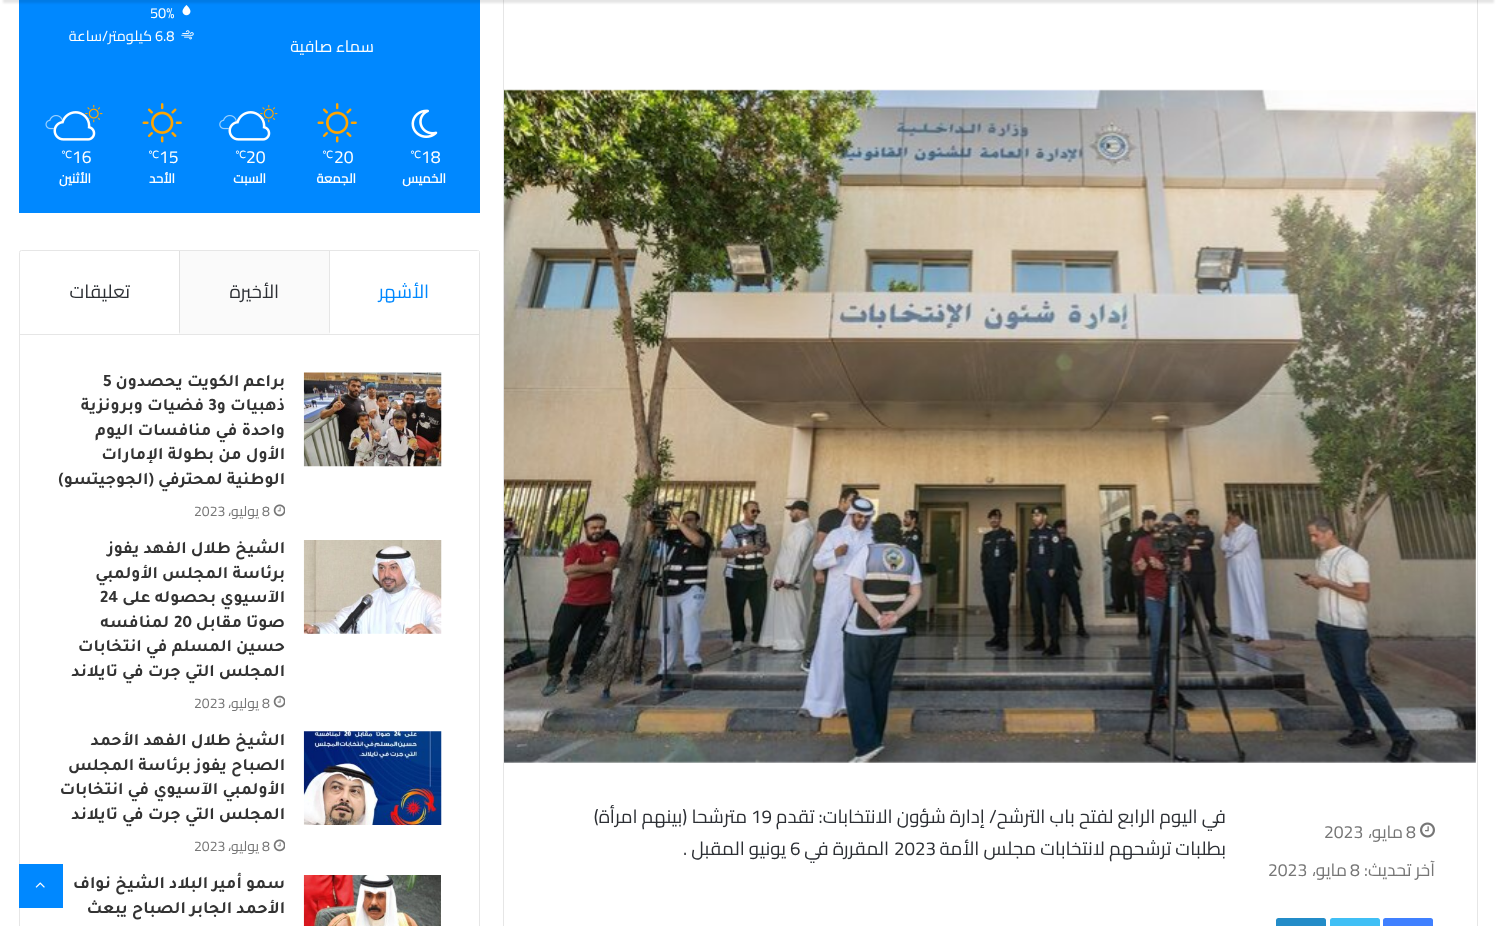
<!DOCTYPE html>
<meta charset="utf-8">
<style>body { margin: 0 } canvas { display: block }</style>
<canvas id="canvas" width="1496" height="926"></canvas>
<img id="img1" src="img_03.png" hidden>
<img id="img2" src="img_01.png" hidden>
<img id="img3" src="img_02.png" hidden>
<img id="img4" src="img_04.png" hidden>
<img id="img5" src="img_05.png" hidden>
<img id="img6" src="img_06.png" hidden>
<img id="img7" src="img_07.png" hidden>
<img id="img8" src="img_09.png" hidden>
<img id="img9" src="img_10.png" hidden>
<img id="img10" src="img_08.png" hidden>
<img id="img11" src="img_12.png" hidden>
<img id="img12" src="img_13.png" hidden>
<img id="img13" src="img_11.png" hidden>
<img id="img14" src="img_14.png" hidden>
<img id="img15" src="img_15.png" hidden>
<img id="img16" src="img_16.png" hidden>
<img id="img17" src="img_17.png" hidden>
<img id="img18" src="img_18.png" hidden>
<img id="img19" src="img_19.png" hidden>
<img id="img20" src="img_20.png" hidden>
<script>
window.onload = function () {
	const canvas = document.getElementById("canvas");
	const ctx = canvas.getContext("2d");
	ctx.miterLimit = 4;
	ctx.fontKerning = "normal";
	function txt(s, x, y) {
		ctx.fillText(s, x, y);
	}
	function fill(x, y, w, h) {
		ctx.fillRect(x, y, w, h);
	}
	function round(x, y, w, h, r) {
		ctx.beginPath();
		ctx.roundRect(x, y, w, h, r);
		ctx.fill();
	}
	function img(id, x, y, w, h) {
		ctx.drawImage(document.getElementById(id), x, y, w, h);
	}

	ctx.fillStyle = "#FFFFFF";
	fill(0, 0, 1496, 926);
	ctx.strokeStyle = "#E6E6E6";
	ctx.strokeRect(503.5, -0.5, 974, 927);
	ctx.fillStyle = "#0088FF";
	fill(19, 0, 461, 213);
	img("img1", 182, 5, 9, 11);
	ctx.fillStyle = "rgba(0, 0, 0, 0.1)";
	ctx.filter = "blur(1px)";
	ctx.beginPath();
	ctx.rect(3, -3, 1491, 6);
	ctx.fill();
	ctx.filter = "none";
	img("img2", 504, 89, 972, 674);
	img("img3", 1420, 822, 15, 16);
	ctx.fillStyle = "#4080FF";
	round(1383, 918, 50, 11, 2.5);
	ctx.fillStyle = "#40BFF5";
	round(1330, 918, 50, 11, 2.5);
	ctx.fillStyle = "#238CC8";
	round(1276, 918, 50, 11, 2.5);
	img("img4", 181, 30, 13, 10);
	img("img5", 411, 109, 27, 29);
	img("img6", 317, 103, 40, 40);
	img("img7", 260, 104, 18, 19);
	img("img8", 219, 115, 18, 15);
	img("img9", 228, 118, 36, 12);
	img("img10", 228, 111, 43, 30);
	img("img6", 142, 103, 40, 40);
	img("img7", 85, 104, 18, 19);
	img("img11", 45, 115, 18, 15);
	img("img12", 53, 118, 36, 12);
	img("img13", 53, 111, 43, 30);
	ctx.beginPath();
	ctx.roundRect(19.5, 250.5, 460, 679, 2);
	ctx.stroke();
	ctx.fillStyle = "#E6E6E6";
	fill(20, 334, 459, 1);
	ctx.fillStyle = "#FFFFFF";
	fill(478, 251, 1, 1);
	ctx.fillStyle = "#E6E6E6";
	ctx.beginPath();
	ctx.moveTo(329, 334);
	ctx.lineTo(329, 251);
	ctx.lineTo(330, 251);
	ctx.lineTo(330, 332);
	ctx.closePath();
	ctx.fill();
	ctx.fillStyle = "#FAFAFA";
	fill(179, 251, 150, 83);
	ctx.fillStyle = "#E1E1E1";
	ctx.beginPath();
	ctx.moveTo(179, 334);
	ctx.lineTo(179, 251);
	ctx.lineTo(180, 251);
	ctx.lineTo(180, 332);
	ctx.closePath();
	ctx.fill();
	img("img14", 303, 372, 139, 95);
	img("img15", 273, 504, 12, 13);
	img("img16", 303, 540, 139, 94);
	img("img17", 273, 695, 12, 13);
	img("img18", 303, 731, 139, 94);
	img("img15", 273, 839, 12, 13);
	img("img19", 303, 875, 138, 51);
	ctx.fillStyle = "#0088FF";
	fill(19, 864, 44, 44);
	img("img20", 35, 882, 10, 6);
	ctx.font = "17.5px Cairo";
	ctx.fillStyle = "#767676";
	txt("8", 1406, 838);
	ctx.direction = "rtl";
	txt("مايو،", 1403, 838);
	ctx.direction = "ltr";
	txt("2023", 1324, 838);
	ctx.direction = "rtl";
	txt("آخر تحديث:", 1435, 876);
	ctx.direction = "ltr";
	txt("8", 1350, 876);
	ctx.direction = "rtl";
	txt("مايو،", 1347, 876);
	ctx.direction = "ltr";
	txt("2023", 1268, 876);
	ctx.direction = "rtl";
	ctx.font = "18.75px Cairo";
	ctx.fillStyle = "#2C2F34";
	txt("في اليوم الرابع لفتح باب الترشح/ إدارة شؤون الانتخابات: تقدم", 1226, 823);
	ctx.direction = "ltr";
	txt("19", 751, 823);
	ctx.direction = "rtl";
	txt("مترشحا (بينهم امرأة)", 747, 823);
	txt("بطلبات ترشحهم لانتخابات مجلس الأمة", 1226, 855);
	ctx.direction = "ltr";
	txt("2023", 894, 855);
	ctx.direction = "rtl";
	txt("المقررة في", 889, 855);
	ctx.direction = "ltr";
	txt("6", 790, 855);
	ctx.direction = "rtl";
	txt("يونيو المقبل .", 786, 855);
	ctx.direction = "ltr";
	ctx.font = "14.5px Cairo";
	ctx.fillStyle = "#FFFFFF";
	txt("50%", 150, 18);
	txt("6.8", 155, 41);
	ctx.direction = "rtl";
	txt("كيلومتر/ساعة", 152, 41);
	ctx.font = "16.25px Cairo";
	txt("سماء صافية", 374, 52);
	ctx.direction = "ltr";
	ctx.font = "17.5px Cairo";
	txt("18", 421, 163);
	ctx.font = "10px DejaVu Sans";
	txt("℃", 410, 158);
	ctx.direction = "rtl";
	ctx.font = "bold 13px Cairo";
	txt("الخميس", 446, 183);
	ctx.direction = "ltr";
	ctx.font = "17.5px Cairo";
	txt("20", 334, 163);
	ctx.font = "10px DejaVu Sans";
	txt("℃", 322, 158);
	ctx.direction = "rtl";
	ctx.font = "bold 13px Cairo";
	txt("الجمعة", 356, 183);
	ctx.direction = "ltr";
	ctx.font = "17.5px Cairo";
	txt("20", 246, 163);
	ctx.font = "10px DejaVu Sans";
	txt("℃", 235, 158);
	ctx.direction = "rtl";
	ctx.font = "bold 13px Cairo";
	txt("السبت", 266, 183);
	ctx.direction = "ltr";
	ctx.font = "17.5px Cairo";
	txt("15", 159, 163);
	ctx.font = "10px DejaVu Sans";
	txt("℃", 148, 158);
	ctx.direction = "rtl";
	ctx.font = "bold 13px Cairo";
	txt("الأحد", 175, 183);
	ctx.direction = "ltr";
	ctx.font = "17.5px Cairo";
	txt("16", 72, 163);
	ctx.font = "10px DejaVu Sans";
	txt("℃", 61, 158);
	ctx.direction = "rtl";
	ctx.font = "bold 13px Cairo";
	txt("الأثنين", 91, 183);
	ctx.font = "18.75px Cairo";
	ctx.fillStyle = "#0088FF";
	txt("الأشهر", 429, 298);
	ctx.fillStyle = "#2C2F34";
	txt("الأخيرة", 279, 298);
	txt("تعليقات", 130, 298);
	ctx.font = "bold 17.5px Tajawal";
	ctx.fillStyle = "#333333";
	txt("براعم الكويت يحصدون", 285, 386);
	ctx.direction = "ltr";
	txt("5", 103, 386);
	ctx.direction = "rtl";
	txt("ذهبيات و", 285, 410);
	ctx.direction = "ltr";
	txt("3", 208, 410);
	ctx.direction = "rtl";
	txt("فضيات وبرونزية", 204, 410);
	txt("واحدة في منافسات اليوم", 285, 435);
	txt("الأول من بطولة الإمارات", 285, 459);
	txt("الوطنية لمحترفي (الجوجيتسو)", 285, 484);
	ctx.direction = "ltr";
	ctx.font = "14px Cairo";
	ctx.fillStyle = "#767676";
	txt("8", 262, 516);
	ctx.direction = "rtl";
	txt("يوليو،", 259, 516);
	ctx.direction = "ltr";
	txt("2023", 194, 516);
	ctx.direction = "rtl";
	ctx.font = "bold 17.5px Tajawal";
	ctx.fillStyle = "#333333";
	txt("الشيخ طلال الفهد يفوز", 285, 553);
	txt("برئاسة المجلس الأولمبي", 285, 578);
	txt("الآسيوي بحصوله على", 285, 602);
	ctx.direction = "ltr";
	txt("24", 100, 602);
	ctx.direction = "rtl";
	txt("صوتا مقابل", 285, 627);
	ctx.direction = "ltr";
	txt("20", 174, 627);
	ctx.direction = "rtl";
	txt("لمنافسه", 169, 627);
	txt("حسين المسلم في انتخابات", 285, 651);
	txt("المجلس التي جرت في تايلاند", 285, 676);
	ctx.direction = "ltr";
	ctx.font = "14px Cairo";
	ctx.fillStyle = "#767676";
	txt("8", 262, 708);
	ctx.direction = "rtl";
	txt("يوليو،", 259, 708);
	ctx.direction = "ltr";
	txt("2023", 194, 708);
	ctx.direction = "rtl";
	ctx.font = "bold 17.5px Tajawal";
	ctx.fillStyle = "#333333";
	txt("الشيخ طلال الفهد الأحمد", 285, 745);
	txt("الصباح يفوز برئاسة المجلس", 285, 770);
	txt("الأولمبي الآسيوي في انتخابات", 285, 794);
	txt("المجلس التي جرت في تايلاند", 285, 819);
	ctx.direction = "ltr";
	ctx.font = "14px Cairo";
	ctx.fillStyle = "#767676";
	txt("8", 262, 851);
	ctx.direction = "rtl";
	txt("يوليو،", 259, 851);
	ctx.direction = "ltr";
	txt("2023", 194, 851);
	ctx.direction = "rtl";
	ctx.font = "bold 17.5px Tajawal";
	ctx.fillStyle = "#333333";
	txt("سمو أمير البلاد الشيخ نواف", 285, 888);
	txt("الأحمد الجابر الصباح يبعث", 285, 913);
};
</script>
